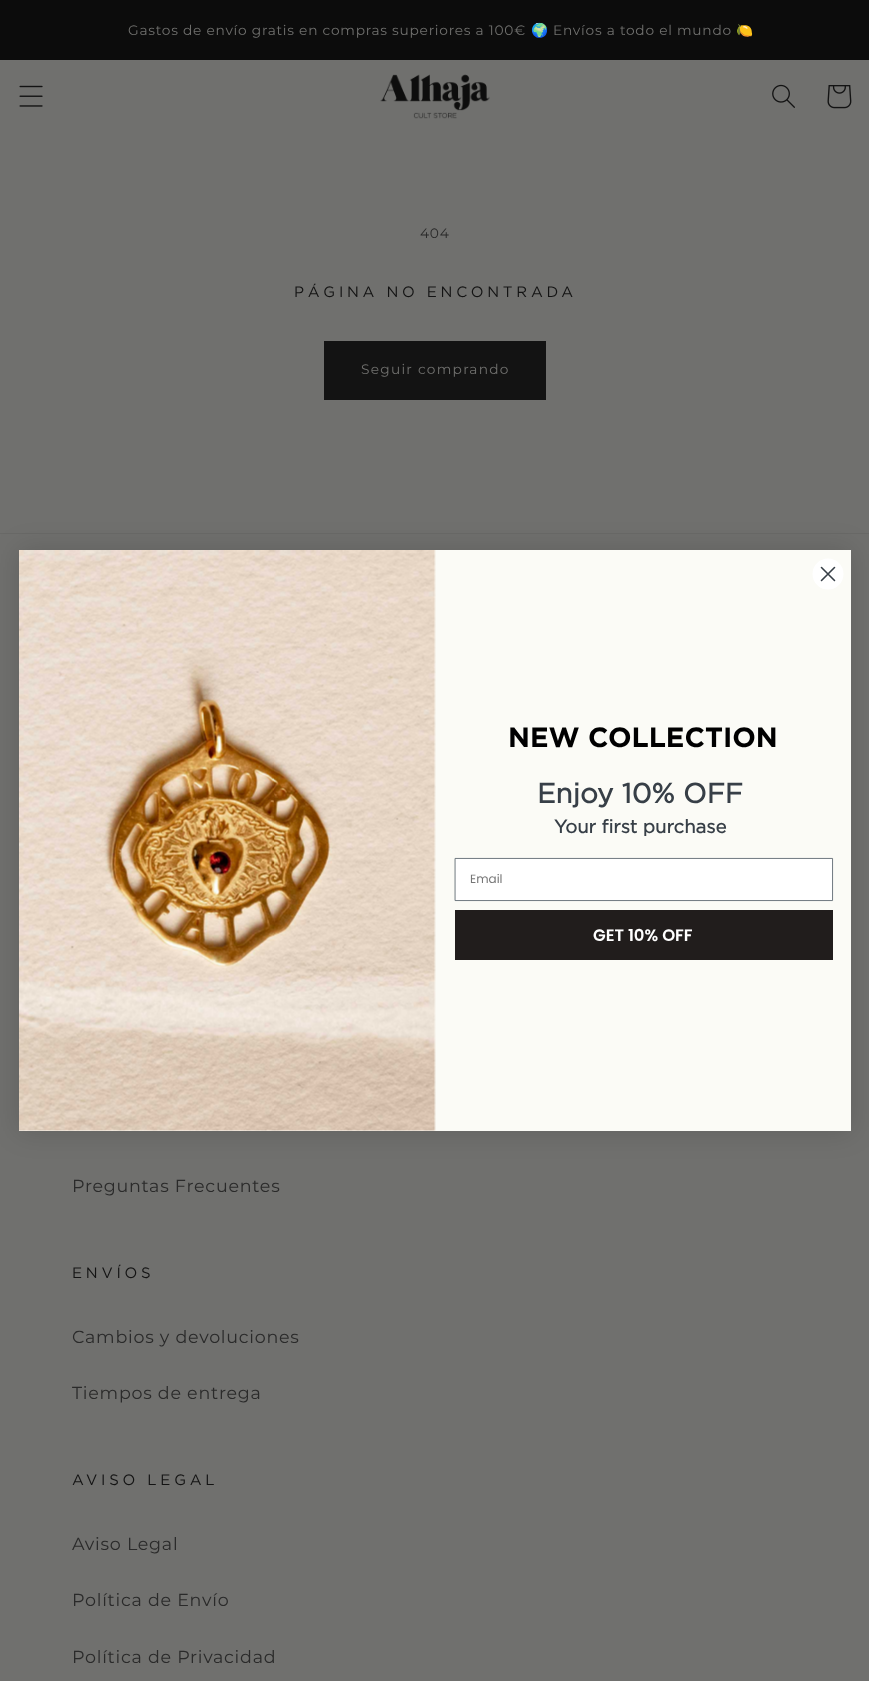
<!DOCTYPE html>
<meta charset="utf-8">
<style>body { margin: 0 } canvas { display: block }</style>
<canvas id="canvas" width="869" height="1681"></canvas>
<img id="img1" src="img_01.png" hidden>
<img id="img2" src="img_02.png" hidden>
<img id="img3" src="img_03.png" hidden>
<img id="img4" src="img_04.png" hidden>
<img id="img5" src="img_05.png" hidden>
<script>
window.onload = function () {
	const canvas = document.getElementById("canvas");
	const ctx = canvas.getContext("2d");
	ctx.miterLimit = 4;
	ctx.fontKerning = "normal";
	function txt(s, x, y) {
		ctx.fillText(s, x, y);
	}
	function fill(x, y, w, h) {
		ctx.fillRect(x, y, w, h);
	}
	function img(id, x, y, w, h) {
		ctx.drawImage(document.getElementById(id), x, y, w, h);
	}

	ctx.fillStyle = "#70706E";
	fill(0, 0, 869, 1681);
	ctx.fillStyle = "#0C0C0C";
	fill(0, 0, 869, 60);
	img("img1", 19, 85, 24, 22);
	img("img2", 380, 74, 110, 45);
	img("img3", 772, 84, 23, 24);
	img("img4", 827, 85, 25, 24);
	ctx.fillStyle = "#131313";
	fill(324, 341, 222, 59);
	ctx.fillStyle = "#696967";
	fill(0, 533, 869, 1);
	ctx.fillStyle = "rgba(0, 0, 0, 0.15)";
	ctx.filter = "blur(14px)";
	ctx.beginPath();
	ctx.rect(19, 550, 832, 581);
	ctx.fill();
	ctx.filter = "none";
	ctx.fillStyle = "#FBFBF6";
	fill(19, 550, 832, 581);
	ctx.fillStyle = "#FFFFFF";
	ctx.beginPath();
	ctx.arc(828, 574, 15.5, 0, Math.PI * 2);
	ctx.fill();
	ctx.beginPath();
	ctx.moveTo(821.5, 567.5);
	ctx.lineTo(834.5, 580.5);
	ctx.moveTo(821.5, 580.5);
	ctx.lineTo(834.5, 567.5);
	ctx.closePath();
	ctx.strokeStyle = "#373F47";
	ctx.lineWidth = 1.6;
	ctx.lineCap = "round";
	ctx.lineJoin = "round";
	ctx.stroke();
	img("img5", 19, 550, 417, 581);
	ctx.beginPath();
	ctx.rect(455.45, 858.45, 377.1, 42.1);
	ctx.fill();
	ctx.strokeStyle = "#606A72";
	ctx.lineWidth = 0.9;
	ctx.lineJoin = "miter";
	ctx.stroke();
	ctx.fillStyle = "#211D1C";
	fill(455, 910, 378, 50);
	ctx.letterSpacing = "0.75px";
	ctx.font = "13.75px Montserrat";
	ctx.fillStyle = "#70706E";
	txt("Gastos de envío gratis en compras superiores a 100€", 128, 35);
	ctx.font = "13.75px Noto Color Emoji";
	txt("🌍", 531, 35);
	ctx.font = "13.75px Montserrat";
	txt("Envíos a todo el mundo", 553, 35);
	ctx.font = "13.75px Noto Color Emoji";
	txt("🍋", 736, 35);
	ctx.font = "13.75px Montserrat";
	ctx.fillStyle = "#2A2A2A";
	txt("404", 420, 238);
	ctx.letterSpacing = "3.75px";
	ctx.font = "15px Gotham";
	ctx.fillStyle = "#131313";
	txt("PÁGINA NO ENCONTRADA", 294, 297);
	ctx.letterSpacing = "1.25px";
	ctx.font = "13.75px Montserrat";
	ctx.fillStyle = "#70706E";
	txt("Seguir comprando", 361, 374);
	ctx.letterSpacing = "0px";
	ctx.font = "bold 27.75px Gotham";
	ctx.fillStyle = "#000000";
	txt("NEW COLLECTION", 508, 747);
	ctx.font = "bold 27.75px 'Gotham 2'";
	ctx.fillStyle = "#373F47";
	txt("Enjoy 10% OFF", 537, 803);
	ctx.font = "bold 18.5px 'Gotham 2'";
	txt("Your first purchase", 554, 833);
	ctx.font = "12px Poppins";
	ctx.fillStyle = "#767676";
	txt("Email", 470, 883);
	ctx.font = "600 16.5px Poppins";
	ctx.fillStyle = "#FFFFFF";
	txt("GET 10% OFF", 593, 941);
	ctx.letterSpacing = "0.75px";
	ctx.font = "17.5px Montserrat";
	ctx.fillStyle = "#2A2A2A";
	txt("Preguntas Frecuentes", 72, 1192);
	ctx.letterSpacing = "3.75px";
	ctx.font = "15px Gotham";
	ctx.fillStyle = "#131313";
	txt("ENVÍOS", 72, 1278);
	ctx.letterSpacing = "0.75px";
	ctx.font = "17.5px Montserrat";
	ctx.fillStyle = "#2A2A2A";
	txt("Cambios y devoluciones", 72, 1343);
	txt("Tiempos de entrega", 72, 1399);
	ctx.letterSpacing = "3.75px";
	ctx.font = "15px Gotham";
	ctx.fillStyle = "#131313";
	txt("AVISO LEGAL", 72, 1485);
	ctx.letterSpacing = "0.75px";
	ctx.font = "17.5px Montserrat";
	ctx.fillStyle = "#2A2A2A";
	txt("Aviso Legal", 72, 1550);
	txt("Política de Envío", 72, 1606);
	txt("Política de Privacidad", 72, 1663);
};
</script>
